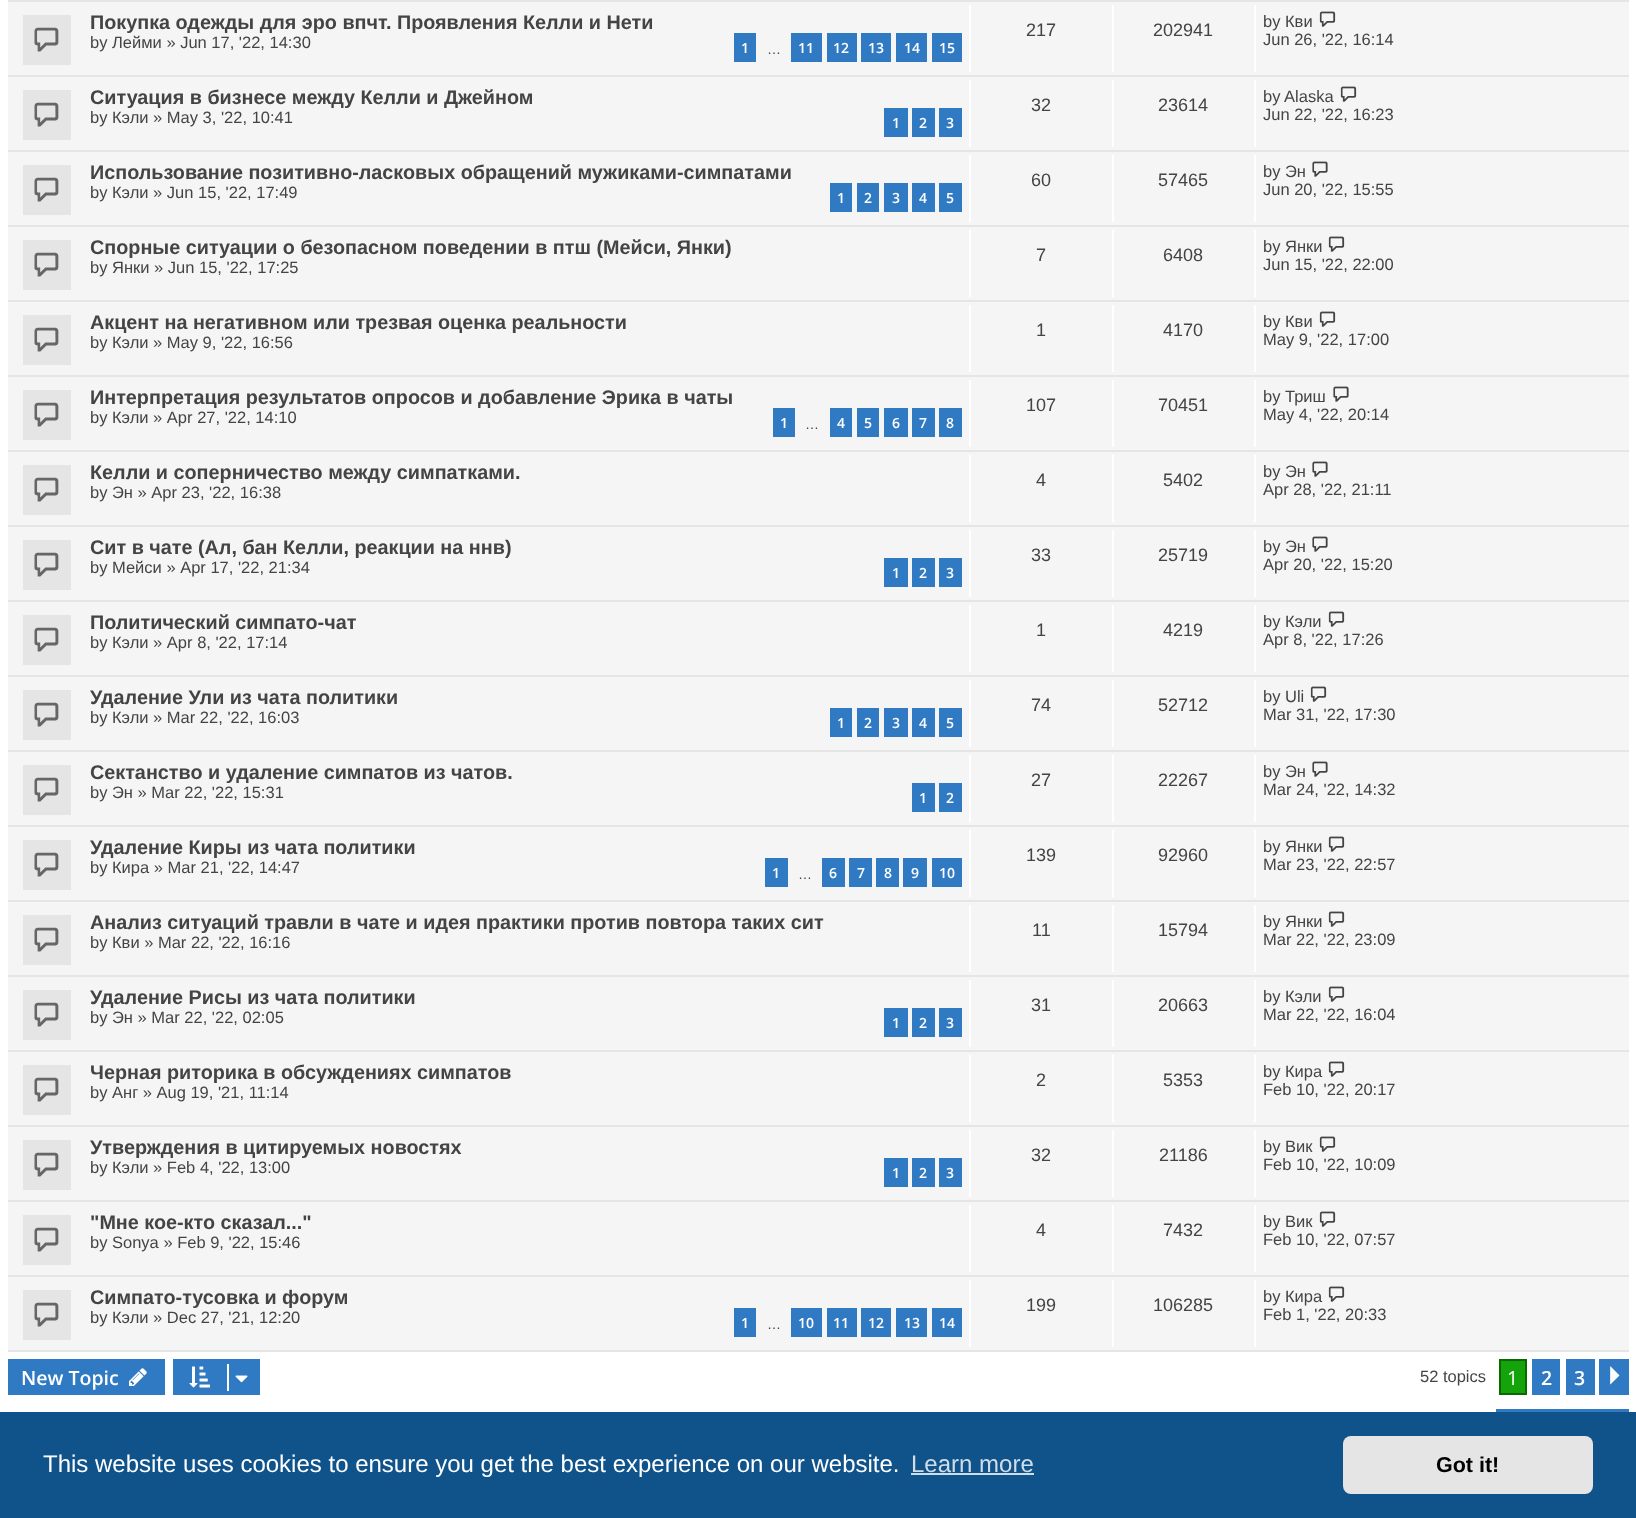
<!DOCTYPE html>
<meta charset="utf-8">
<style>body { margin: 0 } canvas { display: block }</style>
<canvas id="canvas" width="1636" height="1518"></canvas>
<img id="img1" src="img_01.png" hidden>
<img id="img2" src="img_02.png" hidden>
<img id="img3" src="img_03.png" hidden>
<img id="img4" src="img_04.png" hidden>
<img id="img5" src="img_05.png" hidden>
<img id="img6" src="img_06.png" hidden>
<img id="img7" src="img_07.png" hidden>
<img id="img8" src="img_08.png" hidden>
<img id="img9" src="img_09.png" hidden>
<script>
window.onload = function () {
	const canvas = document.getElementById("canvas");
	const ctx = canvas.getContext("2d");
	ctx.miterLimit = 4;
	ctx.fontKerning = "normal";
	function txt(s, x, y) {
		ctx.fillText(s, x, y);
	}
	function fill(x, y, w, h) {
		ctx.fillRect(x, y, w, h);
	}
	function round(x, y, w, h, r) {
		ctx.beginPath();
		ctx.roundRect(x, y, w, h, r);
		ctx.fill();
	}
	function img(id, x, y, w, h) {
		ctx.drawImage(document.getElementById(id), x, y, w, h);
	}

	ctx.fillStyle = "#FFFFFF";
	fill(0, 0, 1636, 1518);
	ctx.fillStyle = "#E5E5E5";
	fill(8, 0, 1621, 2);
	ctx.fillStyle = "#F5F5F5";
	fill(8, 2, 1621, 73);
	ctx.fillStyle = "#E5E5E5";
	fill(8, 75, 1621, 2);
	fill(23, 15, 48, 50);
	img("img1", 34, 27, 25, 25);
	ctx.fillStyle = "#307AC3";
	fill(734, 33, 22, 29);
	fill(791, 33, 31, 29);
	fill(827, 33, 30, 29);
	fill(861, 33, 30, 29);
	fill(896, 33, 31, 29);
	fill(932, 33, 30, 29);
	ctx.fillStyle = "#FFFFFF";
	fill(969, 5, 2, 67);
	fill(1112, 5, 2, 67);
	fill(1254, 5, 2, 67);
	img("img2", 1319, 11, 17, 16);
	ctx.fillStyle = "#F5F5F5";
	fill(8, 77, 1621, 73);
	ctx.fillStyle = "#E5E5E5";
	fill(8, 150, 1621, 2);
	fill(23, 90, 48, 50);
	img("img1", 34, 102, 25, 25);
	ctx.fillStyle = "#307AC3";
	fill(884, 108, 24, 29);
	fill(912, 108, 23, 29);
	fill(939, 108, 23, 29);
	ctx.fillStyle = "#FFFFFF";
	fill(969, 80, 2, 67);
	fill(1112, 80, 2, 67);
	fill(1254, 80, 2, 67);
	img("img2", 1340, 86, 17, 16);
	ctx.fillStyle = "#F5F5F5";
	fill(8, 152, 1621, 73);
	ctx.fillStyle = "#E5E5E5";
	fill(8, 225, 1621, 2);
	fill(23, 165, 48, 50);
	img("img1", 34, 177, 25, 25);
	ctx.fillStyle = "#307AC3";
	fill(830, 183, 22, 29);
	fill(857, 183, 22, 29);
	fill(884, 183, 24, 29);
	fill(912, 183, 23, 29);
	fill(939, 183, 23, 29);
	ctx.fillStyle = "#FFFFFF";
	fill(969, 155, 2, 67);
	fill(1112, 155, 2, 67);
	fill(1254, 155, 2, 67);
	img("img3", 1312, 161, 16, 16);
	ctx.fillStyle = "#F5F5F5";
	fill(8, 227, 1621, 73);
	ctx.fillStyle = "#E5E5E5";
	fill(8, 300, 1621, 2);
	fill(23, 240, 48, 50);
	img("img1", 34, 252, 25, 25);
	ctx.fillStyle = "#FFFFFF";
	fill(969, 230, 2, 67);
	fill(1112, 230, 2, 67);
	fill(1254, 230, 2, 67);
	img("img2", 1328, 236, 17, 16);
	ctx.fillStyle = "#F5F5F5";
	fill(8, 302, 1621, 73);
	ctx.fillStyle = "#E5E5E5";
	fill(8, 375, 1621, 2);
	fill(23, 315, 48, 50);
	img("img1", 34, 327, 25, 25);
	ctx.fillStyle = "#FFFFFF";
	fill(969, 305, 2, 67);
	fill(1112, 305, 2, 67);
	fill(1254, 305, 2, 67);
	img("img2", 1319, 311, 17, 16);
	ctx.fillStyle = "#F5F5F5";
	fill(8, 377, 1621, 73);
	ctx.fillStyle = "#E5E5E5";
	fill(8, 450, 1621, 2);
	fill(23, 390, 48, 50);
	img("img4", 34, 402, 25, 25);
	ctx.fillStyle = "#307AC3";
	fill(773, 408, 22, 29);
	fill(830, 408, 22, 29);
	fill(857, 408, 22, 29);
	fill(884, 408, 24, 29);
	fill(912, 408, 23, 29);
	fill(939, 408, 23, 29);
	ctx.fillStyle = "#FFFFFF";
	fill(969, 380, 2, 67);
	fill(1112, 380, 2, 67);
	fill(1254, 380, 2, 67);
	img("img3", 1333, 386, 16, 16);
	ctx.fillStyle = "#F5F5F5";
	fill(8, 452, 1621, 73);
	ctx.fillStyle = "#E5E5E5";
	fill(8, 525, 1621, 2);
	fill(23, 465, 48, 50);
	img("img1", 34, 477, 25, 25);
	ctx.fillStyle = "#FFFFFF";
	fill(969, 455, 2, 67);
	fill(1112, 455, 2, 67);
	fill(1254, 455, 2, 67);
	img("img3", 1312, 461, 16, 16);
	ctx.fillStyle = "#F5F5F5";
	fill(8, 527, 1621, 73);
	ctx.fillStyle = "#E5E5E5";
	fill(8, 600, 1621, 2);
	fill(23, 540, 48, 50);
	img("img1", 34, 552, 25, 25);
	ctx.fillStyle = "#307AC3";
	fill(884, 558, 24, 29);
	fill(912, 558, 23, 29);
	fill(939, 558, 23, 29);
	ctx.fillStyle = "#FFFFFF";
	fill(969, 530, 2, 67);
	fill(1112, 530, 2, 67);
	fill(1254, 530, 2, 67);
	img("img3", 1312, 536, 16, 16);
	ctx.fillStyle = "#F5F5F5";
	fill(8, 602, 1621, 73);
	ctx.fillStyle = "#E5E5E5";
	fill(8, 675, 1621, 2);
	fill(23, 615, 48, 50);
	img("img1", 34, 627, 25, 25);
	ctx.fillStyle = "#FFFFFF";
	fill(969, 605, 2, 67);
	fill(1112, 605, 2, 67);
	fill(1254, 605, 2, 67);
	img("img2", 1328, 611, 17, 16);
	ctx.fillStyle = "#F5F5F5";
	fill(8, 677, 1621, 73);
	ctx.fillStyle = "#E5E5E5";
	fill(8, 750, 1621, 2);
	fill(23, 690, 48, 50);
	img("img1", 34, 702, 25, 25);
	ctx.fillStyle = "#307AC3";
	fill(830, 708, 22, 29);
	fill(857, 708, 22, 29);
	fill(884, 708, 24, 29);
	fill(912, 708, 23, 29);
	fill(939, 708, 23, 29);
	ctx.fillStyle = "#FFFFFF";
	fill(969, 680, 2, 67);
	fill(1112, 680, 2, 67);
	fill(1254, 680, 2, 67);
	img("img2", 1310, 686, 17, 16);
	ctx.fillStyle = "#F5F5F5";
	fill(8, 752, 1621, 73);
	ctx.fillStyle = "#E5E5E5";
	fill(8, 825, 1621, 2);
	fill(23, 765, 48, 50);
	img("img1", 34, 777, 25, 25);
	ctx.fillStyle = "#307AC3";
	fill(912, 783, 23, 29);
	fill(939, 783, 23, 29);
	ctx.fillStyle = "#FFFFFF";
	fill(969, 755, 2, 67);
	fill(1112, 755, 2, 67);
	fill(1254, 755, 2, 67);
	img("img3", 1312, 761, 16, 16);
	ctx.fillStyle = "#F5F5F5";
	fill(8, 827, 1621, 73);
	ctx.fillStyle = "#E5E5E5";
	fill(8, 900, 1621, 2);
	fill(23, 840, 48, 50);
	img("img1", 34, 852, 25, 25);
	ctx.fillStyle = "#307AC3";
	fill(765, 858, 23, 29);
	fill(822, 858, 23, 29);
	fill(849, 858, 23, 29);
	fill(876, 858, 23, 29);
	fill(903, 858, 24, 29);
	fill(932, 858, 30, 29);
	ctx.fillStyle = "#FFFFFF";
	fill(969, 830, 2, 67);
	fill(1112, 830, 2, 67);
	fill(1254, 830, 2, 67);
	img("img2", 1328, 836, 17, 16);
	ctx.fillStyle = "#F5F5F5";
	fill(8, 902, 1621, 73);
	ctx.fillStyle = "#E5E5E5";
	fill(8, 975, 1621, 2);
	fill(23, 915, 48, 50);
	img("img1", 34, 927, 25, 25);
	ctx.fillStyle = "#FFFFFF";
	fill(969, 905, 2, 67);
	fill(1112, 905, 2, 67);
	fill(1254, 905, 2, 67);
	img("img2", 1328, 911, 17, 16);
	ctx.fillStyle = "#F5F5F5";
	fill(8, 977, 1621, 73);
	ctx.fillStyle = "#E5E5E5";
	fill(8, 1050, 1621, 2);
	fill(23, 990, 48, 50);
	img("img1", 34, 1002, 25, 25);
	ctx.fillStyle = "#307AC3";
	fill(884, 1008, 24, 29);
	fill(912, 1008, 23, 29);
	fill(939, 1008, 23, 29);
	ctx.fillStyle = "#FFFFFF";
	fill(969, 980, 2, 67);
	fill(1112, 980, 2, 67);
	fill(1254, 980, 2, 67);
	img("img2", 1328, 986, 17, 16);
	ctx.fillStyle = "#F5F5F5";
	fill(8, 1052, 1621, 73);
	ctx.fillStyle = "#E5E5E5";
	fill(8, 1125, 1621, 2);
	fill(23, 1065, 48, 50);
	img("img1", 34, 1077, 25, 25);
	ctx.fillStyle = "#FFFFFF";
	fill(969, 1055, 2, 67);
	fill(1112, 1055, 2, 67);
	fill(1254, 1055, 2, 67);
	img("img2", 1328, 1061, 17, 16);
	ctx.fillStyle = "#F5F5F5";
	fill(8, 1127, 1621, 73);
	ctx.fillStyle = "#E5E5E5";
	fill(8, 1200, 1621, 2);
	fill(23, 1140, 48, 50);
	img("img5", 34, 1152, 25, 25);
	ctx.fillStyle = "#307AC3";
	fill(884, 1158, 24, 29);
	fill(912, 1158, 23, 29);
	fill(939, 1158, 23, 29);
	ctx.fillStyle = "#FFFFFF";
	fill(969, 1130, 2, 67);
	fill(1112, 1130, 2, 67);
	fill(1254, 1130, 2, 67);
	img("img2", 1319, 1136, 17, 16);
	ctx.fillStyle = "#F5F5F5";
	fill(8, 1202, 1621, 73);
	ctx.fillStyle = "#E5E5E5";
	fill(8, 1275, 1621, 2);
	fill(23, 1215, 48, 50);
	img("img1", 34, 1227, 25, 25);
	ctx.fillStyle = "#FFFFFF";
	fill(969, 1205, 2, 67);
	fill(1112, 1205, 2, 67);
	fill(1254, 1205, 2, 67);
	img("img2", 1319, 1211, 17, 16);
	ctx.fillStyle = "#F5F5F5";
	fill(8, 1277, 1621, 73);
	ctx.fillStyle = "#E5E5E5";
	fill(8, 1350, 1621, 2);
	fill(23, 1290, 48, 50);
	img("img1", 34, 1302, 25, 25);
	ctx.fillStyle = "#307AC3";
	fill(734, 1308, 22, 29);
	fill(791, 1308, 31, 29);
	fill(827, 1308, 30, 29);
	fill(861, 1308, 30, 29);
	fill(896, 1308, 31, 29);
	fill(932, 1308, 30, 29);
	ctx.fillStyle = "#FFFFFF";
	fill(969, 1280, 2, 67);
	fill(1112, 1280, 2, 67);
	fill(1254, 1280, 2, 67);
	img("img2", 1328, 1286, 17, 16);
	ctx.fillStyle = "#307AC3";
	fill(8, 1359, 157, 36);
	img("img6", 129, 1368, 18, 18);
	fill(173, 1359, 87, 36);
	img("img7", 189, 1366, 21, 22);
	ctx.fillStyle = "#FFFFFF";
	fill(227, 1364, 2, 27);
	img("img8", 235, 1375, 13, 8);
	ctx.fillStyle = "#14A30A";
	ctx.beginPath();
	ctx.rect(1500, 1360, 26, 34);
	ctx.fill();
	ctx.strokeStyle = "#0A6903";
	ctx.lineWidth = 2;
	ctx.stroke();
	ctx.fillStyle = "#307AC3";
	fill(1532, 1359, 28, 36);
	fill(1566, 1359, 29, 36);
	fill(1599, 1359, 30, 36);
	img("img9", 1610, 1366, 10, 19);
	fill(1496, 1409, 133, 3);
	ctx.fillStyle = "#0F538A";
	fill(0, 1412, 1636, 106);
	ctx.fillStyle = "#CFDDE8";
	fill(911, 1473, 123, 2);
	ctx.fillStyle = "#E5E5E5";
	round(1343, 1436, 250, 58, 8);
	ctx.font = "bold 19.8px Liberation Sans";
	ctx.fillStyle = "#444444";
	txt("Покупка одежды для эро впчт. Проявления Келли и Нети", 90, 29);
	ctx.font = "16.5px Liberation Sans";
	txt("by Лейми » Jun 17, '22, 14:30", 90, 48);
	ctx.font = "600 14px Open Sans";
	ctx.fillStyle = "#FFFFFF";
	txt("1", 741, 53);
	ctx.font = "14px Liberation Sans";
	ctx.fillStyle = "#444444";
	txt("…", 767, 54);
	ctx.font = "600 14px Open Sans";
	ctx.fillStyle = "#FFFFFF";
	txt("11", 798, 53);
	txt("12", 833, 53);
	txt("13", 868, 53);
	txt("14", 904, 53);
	txt("15", 939, 53);
	ctx.font = "18px Liberation Sans";
	ctx.fillStyle = "#444444";
	txt("217", 1026, 36);
	txt("202941", 1153, 36);
	ctx.font = "16.5px Liberation Sans";
	txt("by Кви", 1263, 27);
	txt("Jun 26, '22, 16:14", 1263, 45);
	ctx.font = "bold 19.8px Liberation Sans";
	txt("Ситуация в бизнесе между Келли и Джейном", 90, 104);
	ctx.font = "16.5px Liberation Sans";
	txt("by Кэли » May 3, '22, 10:41", 90, 123);
	ctx.font = "600 14px Open Sans";
	ctx.fillStyle = "#FFFFFF";
	txt("1", 892, 128);
	txt("2", 919, 128);
	txt("3", 946, 128);
	ctx.font = "18px Liberation Sans";
	ctx.fillStyle = "#444444";
	txt("32", 1031, 111);
	txt("23614", 1158, 111);
	ctx.font = "16.5px Liberation Sans";
	txt("by Alaska", 1263, 102);
	txt("Jun 22, '22, 16:23", 1263, 120);
	ctx.font = "bold 19.8px Liberation Sans";
	txt("Использование позитивно-ласковых обращений мужиками-симпатами", 90, 179);
	ctx.font = "16.5px Liberation Sans";
	txt("by Кэли » Jun 15, '22, 17:49", 90, 198);
	ctx.font = "600 14px Open Sans";
	ctx.fillStyle = "#FFFFFF";
	txt("1", 837, 203);
	txt("2", 864, 203);
	txt("3", 892, 203);
	txt("4", 919, 203);
	txt("5", 946, 203);
	ctx.font = "18px Liberation Sans";
	ctx.fillStyle = "#444444";
	txt("60", 1031, 186);
	txt("57465", 1158, 186);
	ctx.font = "16.5px Liberation Sans";
	txt("by Эн", 1263, 177);
	txt("Jun 20, '22, 15:55", 1263, 195);
	ctx.font = "bold 19.8px Liberation Sans";
	txt("Спорные ситуации о безопасном поведении в птш (Мейси, Янки)", 90, 254);
	ctx.font = "16.5px Liberation Sans";
	txt("by Янки » Jun 15, '22, 17:25", 90, 273);
	ctx.font = "18px Liberation Sans";
	txt("7", 1036, 261);
	txt("6408", 1163, 261);
	ctx.font = "16.5px Liberation Sans";
	txt("by Янки", 1263, 252);
	txt("Jun 15, '22, 22:00", 1263, 270);
	ctx.font = "bold 19.8px Liberation Sans";
	txt("Акцент на негативном или трезвая оценка реальности", 90, 329);
	ctx.font = "16.5px Liberation Sans";
	txt("by Кэли » May 9, '22, 16:56", 90, 348);
	ctx.font = "18px Liberation Sans";
	txt("1", 1036, 336);
	txt("4170", 1163, 336);
	ctx.font = "16.5px Liberation Sans";
	txt("by Кви", 1263, 327);
	txt("May 9, '22, 17:00", 1263, 345);
	ctx.font = "bold 19.8px Liberation Sans";
	txt("Интерпретация результатов опросов и добавление Эрика в чаты", 90, 404);
	ctx.font = "16.5px Liberation Sans";
	txt("by Кэли » Apr 27, '22, 14:10", 90, 423);
	ctx.font = "600 14px Open Sans";
	ctx.fillStyle = "#FFFFFF";
	txt("1", 780, 428);
	ctx.font = "14px Liberation Sans";
	ctx.fillStyle = "#444444";
	txt("…", 805, 429);
	ctx.font = "600 14px Open Sans";
	ctx.fillStyle = "#FFFFFF";
	txt("4", 837, 428);
	txt("5", 864, 428);
	txt("6", 892, 428);
	txt("7", 919, 428);
	txt("8", 946, 428);
	ctx.font = "18px Liberation Sans";
	ctx.fillStyle = "#444444";
	txt("107", 1026, 411);
	txt("70451", 1158, 411);
	ctx.font = "16.5px Liberation Sans";
	txt("by Триш", 1263, 402);
	txt("May 4, '22, 20:14", 1263, 420);
	ctx.font = "bold 19.8px Liberation Sans";
	txt("Келли и соперничество между симпатками.", 90, 479);
	ctx.font = "16.5px Liberation Sans";
	txt("by Эн » Apr 23, '22, 16:38", 90, 498);
	ctx.font = "18px Liberation Sans";
	txt("4", 1036, 486);
	txt("5402", 1163, 486);
	ctx.font = "16.5px Liberation Sans";
	txt("by Эн", 1263, 477);
	txt("Apr 28, '22, 21:11", 1263, 495);
	ctx.font = "bold 19.8px Liberation Sans";
	txt("Сит в чате (Ал, бан Келли, реакции на ннв)", 90, 554);
	ctx.font = "16.5px Liberation Sans";
	txt("by Мейси » Apr 17, '22, 21:34", 90, 573);
	ctx.font = "600 14px Open Sans";
	ctx.fillStyle = "#FFFFFF";
	txt("1", 892, 578);
	txt("2", 919, 578);
	txt("3", 946, 578);
	ctx.font = "18px Liberation Sans";
	ctx.fillStyle = "#444444";
	txt("33", 1031, 561);
	txt("25719", 1158, 561);
	ctx.font = "16.5px Liberation Sans";
	txt("by Эн", 1263, 552);
	txt("Apr 20, '22, 15:20", 1263, 570);
	ctx.font = "bold 19.8px Liberation Sans";
	txt("Политический симпато-чат", 90, 629);
	ctx.font = "16.5px Liberation Sans";
	txt("by Кэли » Apr 8, '22, 17:14", 90, 648);
	ctx.font = "18px Liberation Sans";
	txt("1", 1036, 636);
	txt("4219", 1163, 636);
	ctx.font = "16.5px Liberation Sans";
	txt("by Кэли", 1263, 627);
	txt("Apr 8, '22, 17:26", 1263, 645);
	ctx.font = "bold 19.8px Liberation Sans";
	txt("Удаление Ули из чата политики", 90, 704);
	ctx.font = "16.5px Liberation Sans";
	txt("by Кэли » Mar 22, '22, 16:03", 90, 723);
	ctx.font = "600 14px Open Sans";
	ctx.fillStyle = "#FFFFFF";
	txt("1", 837, 728);
	txt("2", 864, 728);
	txt("3", 892, 728);
	txt("4", 919, 728);
	txt("5", 946, 728);
	ctx.font = "18px Liberation Sans";
	ctx.fillStyle = "#444444";
	txt("74", 1031, 711);
	txt("52712", 1158, 711);
	ctx.font = "16.5px Liberation Sans";
	txt("by Uli", 1263, 702);
	txt("Mar 31, '22, 17:30", 1263, 720);
	ctx.font = "bold 19.8px Liberation Sans";
	txt("Сектанство и удаление симпатов из чатов.", 90, 779);
	ctx.font = "16.5px Liberation Sans";
	txt("by Эн » Mar 22, '22, 15:31", 90, 798);
	ctx.font = "600 14px Open Sans";
	ctx.fillStyle = "#FFFFFF";
	txt("1", 919, 803);
	txt("2", 946, 803);
	ctx.font = "18px Liberation Sans";
	ctx.fillStyle = "#444444";
	txt("27", 1031, 786);
	txt("22267", 1158, 786);
	ctx.font = "16.5px Liberation Sans";
	txt("by Эн", 1263, 777);
	txt("Mar 24, '22, 14:32", 1263, 795);
	ctx.font = "bold 19.8px Liberation Sans";
	txt("Удаление Киры из чата политики", 90, 854);
	ctx.font = "16.5px Liberation Sans";
	txt("by Кира » Mar 21, '22, 14:47", 90, 873);
	ctx.font = "600 14px Open Sans";
	ctx.fillStyle = "#FFFFFF";
	txt("1", 772, 878);
	ctx.font = "14px Liberation Sans";
	ctx.fillStyle = "#444444";
	txt("…", 798, 879);
	ctx.font = "600 14px Open Sans";
	ctx.fillStyle = "#FFFFFF";
	txt("6", 829, 878);
	txt("7", 857, 878);
	txt("8", 884, 878);
	txt("9", 911, 878);
	txt("10", 939, 878);
	ctx.font = "18px Liberation Sans";
	ctx.fillStyle = "#444444";
	txt("139", 1026, 861);
	txt("92960", 1158, 861);
	ctx.font = "16.5px Liberation Sans";
	txt("by Янки", 1263, 852);
	txt("Mar 23, '22, 22:57", 1263, 870);
	ctx.font = "bold 19.8px Liberation Sans";
	txt("Анализ ситуаций травли в чате и идея практики против повтора таких сит", 90, 929);
	ctx.font = "16.5px Liberation Sans";
	txt("by Кви » Mar 22, '22, 16:16", 90, 948);
	ctx.font = "18px Liberation Sans";
	txt("11", 1032, 936);
	txt("15794", 1158, 936);
	ctx.font = "16.5px Liberation Sans";
	txt("by Янки", 1263, 927);
	txt("Mar 22, '22, 23:09", 1263, 945);
	ctx.font = "bold 19.8px Liberation Sans";
	txt("Удаление Рисы из чата политики", 90, 1004);
	ctx.font = "16.5px Liberation Sans";
	txt("by Эн » Mar 22, '22, 02:05", 90, 1023);
	ctx.font = "600 14px Open Sans";
	ctx.fillStyle = "#FFFFFF";
	txt("1", 892, 1028);
	txt("2", 919, 1028);
	txt("3", 946, 1028);
	ctx.font = "18px Liberation Sans";
	ctx.fillStyle = "#444444";
	txt("31", 1031, 1011);
	txt("20663", 1158, 1011);
	ctx.font = "16.5px Liberation Sans";
	txt("by Кэли", 1263, 1002);
	txt("Mar 22, '22, 16:04", 1263, 1020);
	ctx.font = "bold 19.8px Liberation Sans";
	txt("Черная риторика в обсуждениях симпатов", 90, 1079);
	ctx.font = "16.5px Liberation Sans";
	txt("by Анг » Aug 19, '21, 11:14", 90, 1098);
	ctx.font = "18px Liberation Sans";
	txt("2", 1036, 1086);
	txt("5353", 1163, 1086);
	ctx.font = "16.5px Liberation Sans";
	txt("by Кира", 1263, 1077);
	txt("Feb 10, '22, 20:17", 1263, 1095);
	ctx.font = "bold 19.8px Liberation Sans";
	txt("Утверждения в цитируемых новостях", 90, 1154);
	ctx.font = "16.5px Liberation Sans";
	txt("by Кэли » Feb 4, '22, 13:00", 90, 1173);
	ctx.font = "600 14px Open Sans";
	ctx.fillStyle = "#FFFFFF";
	txt("1", 892, 1178);
	txt("2", 919, 1178);
	txt("3", 946, 1178);
	ctx.font = "18px Liberation Sans";
	ctx.fillStyle = "#444444";
	txt("32", 1031, 1161);
	txt("21186", 1159, 1161);
	ctx.font = "16.5px Liberation Sans";
	txt("by Вик", 1263, 1152);
	txt("Feb 10, '22, 10:09", 1263, 1170);
	ctx.font = "bold 19.8px Liberation Sans";
	txt("\"Мне кое-кто сказал...\"", 90, 1229);
	ctx.font = "16.5px Liberation Sans";
	txt("by Sonya » Feb 9, '22, 15:46", 90, 1248);
	ctx.font = "18px Liberation Sans";
	txt("4", 1036, 1236);
	txt("7432", 1163, 1236);
	ctx.font = "16.5px Liberation Sans";
	txt("by Вик", 1263, 1227);
	txt("Feb 10, '22, 07:57", 1263, 1245);
	ctx.font = "bold 19.8px Liberation Sans";
	txt("Симпато-тусовка и форум", 90, 1304);
	ctx.font = "16.5px Liberation Sans";
	txt("by Кэли » Dec 27, '21, 12:20", 90, 1323);
	ctx.font = "600 14px Open Sans";
	ctx.fillStyle = "#FFFFFF";
	txt("1", 741, 1328);
	ctx.font = "14px Liberation Sans";
	ctx.fillStyle = "#444444";
	txt("…", 767, 1329);
	ctx.font = "600 14px Open Sans";
	ctx.fillStyle = "#FFFFFF";
	txt("10", 798, 1328);
	txt("11", 833, 1328);
	txt("12", 868, 1328);
	txt("13", 904, 1328);
	txt("14", 939, 1328);
	ctx.font = "18px Liberation Sans";
	ctx.fillStyle = "#444444";
	txt("199", 1026, 1311);
	txt("106285", 1153, 1311);
	ctx.font = "16.5px Liberation Sans";
	txt("by Кира", 1263, 1302);
	txt("Feb 1, '22, 20:33", 1263, 1320);
	ctx.font = "600 19.5px Open Sans";
	ctx.fillStyle = "#FFFFFF";
	txt("New Topic", 21, 1385);
	ctx.font = "16.5px Liberation Sans";
	ctx.fillStyle = "#444444";
	txt("52 topics", 1420, 1382);
	ctx.font = "19.5px Open Sans";
	ctx.fillStyle = "#FFFFFF";
	txt("1", 1507, 1385);
	ctx.font = "600 19.5px Open Sans";
	txt("2", 1541, 1385);
	txt("3", 1574, 1385);
	ctx.font = "24px Liberation Sans";
	txt("This website uses cookies to ensure you get the best experience on our website.", 43, 1472);
	ctx.fillStyle = "#CFDDE8";
	txt("Learn more", 911, 1472);
	ctx.font = "bold 21.5px Liberation Sans";
	ctx.fillStyle = "#000000";
	txt("Got it!", 1436, 1472);
};
</script>
